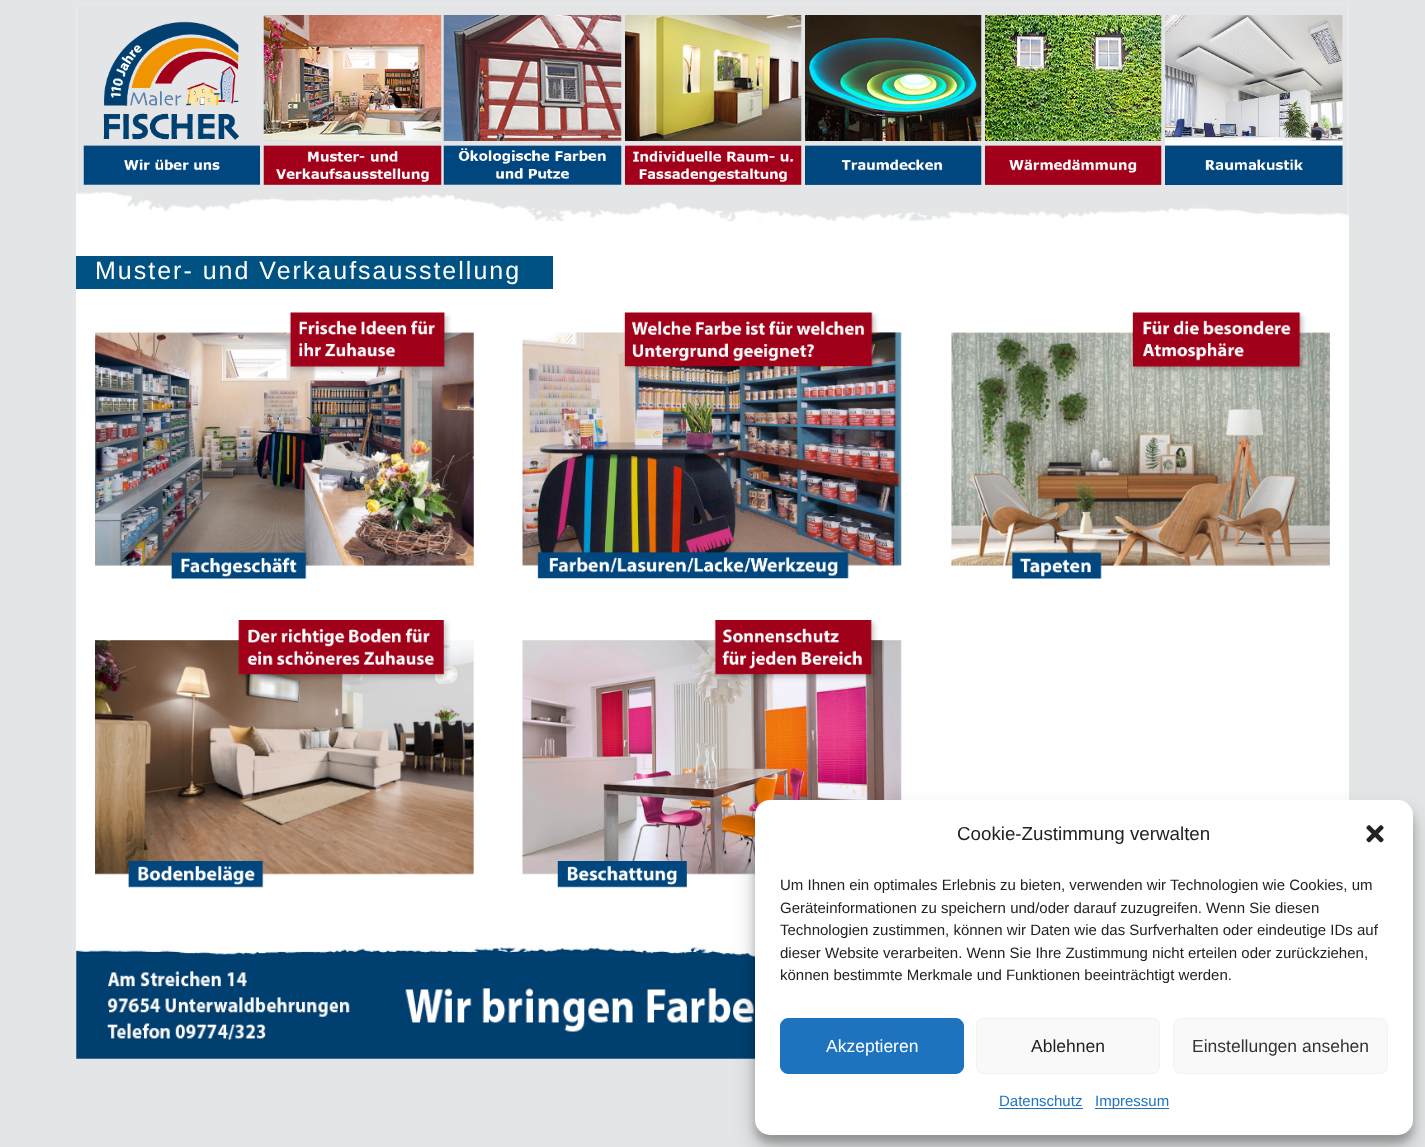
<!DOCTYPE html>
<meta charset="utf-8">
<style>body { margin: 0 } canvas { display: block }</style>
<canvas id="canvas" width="1425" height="1147"></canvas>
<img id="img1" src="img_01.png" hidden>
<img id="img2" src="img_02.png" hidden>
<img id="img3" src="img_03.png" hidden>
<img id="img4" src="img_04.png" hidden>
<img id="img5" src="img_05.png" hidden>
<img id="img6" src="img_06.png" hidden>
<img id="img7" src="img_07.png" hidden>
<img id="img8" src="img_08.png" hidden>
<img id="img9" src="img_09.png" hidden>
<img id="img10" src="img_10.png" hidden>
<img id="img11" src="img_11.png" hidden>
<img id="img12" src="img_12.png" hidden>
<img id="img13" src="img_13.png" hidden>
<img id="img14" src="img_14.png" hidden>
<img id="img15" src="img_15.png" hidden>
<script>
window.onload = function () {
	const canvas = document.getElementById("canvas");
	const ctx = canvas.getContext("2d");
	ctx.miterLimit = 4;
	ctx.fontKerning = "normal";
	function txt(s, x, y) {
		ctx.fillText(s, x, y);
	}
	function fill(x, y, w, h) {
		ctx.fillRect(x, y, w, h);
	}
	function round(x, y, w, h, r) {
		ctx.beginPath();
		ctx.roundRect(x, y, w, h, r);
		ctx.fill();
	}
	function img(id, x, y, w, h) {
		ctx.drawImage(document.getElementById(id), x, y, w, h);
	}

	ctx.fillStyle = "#E4E5E6";
	fill(0, 0, 1425, 1147);
	ctx.fillStyle = "#FFFFFF";
	round(76, 3, 1273, 1056, 5);
	img("img1", 76, 4, 1273, 218);
	ctx.fillStyle = "#E9EAEB";
	fill(76, 3, 1273, 1);
	img("img2", 83, 21, 177, 164);
	img("img3", 263, 15, 179, 170);
	img("img4", 443, 15, 179, 170);
	img("img5", 625, 15, 177, 170);
	img("img6", 805, 15, 177, 170);
	img("img7", 985, 15, 177, 170);
	img("img8", 1165, 15, 178, 170);
	ctx.fillStyle = "#005282";
	fill(76, 256, 477, 33);
	img("img9", 95, 312, 379, 267);
	img("img10", 522, 312, 380, 267);
	img("img11", 951, 312, 379, 267);
	img("img12", 95, 620, 379, 268);
	img("img13", 522, 620, 380, 268);
	img("img14", 76, 943, 679, 116);
	ctx.fillStyle = "rgba(0, 0, 0, 0.23)";
	ctx.filter = "blur(4px)";
	ctx.beginPath();
	ctx.roundRect(755, 808, 658, 335, 15);
	ctx.fill();
	ctx.filter = "none";
	ctx.fillStyle = "rgba(0, 0, 0, 0.19)";
	ctx.filter = "blur(12.5px)";
	ctx.beginPath();
	ctx.roundRect(755, 813, 658, 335, 15);
	ctx.fill();
	ctx.filter = "none";
	ctx.fillStyle = "#FFFFFF";
	round(755, 800, 658, 335, 15);
	img("img15", 1366, 825, 18, 18);
	ctx.fillStyle = "#1E73BE";
	ctx.beginPath();
	ctx.roundRect(780.5, 1018.5, 183, 55, 7.5);
	ctx.fill();
	ctx.strokeStyle = "#1E73BE";
	ctx.stroke();
	ctx.fillStyle = "#F9F9F9";
	ctx.beginPath();
	ctx.roundRect(976.5, 1018.5, 183, 55, 7.5);
	ctx.fill();
	ctx.strokeStyle = "#F2F2F2";
	ctx.stroke();
	ctx.beginPath();
	ctx.roundRect(1173.5, 1018.5, 214, 55, 7.5);
	ctx.fill();
	ctx.stroke();
	ctx.fillStyle = "#1E73BE";
	fill(999, 1108, 84, 1);
	fill(1095, 1108, 74, 1);
	ctx.letterSpacing = "2px";
	ctx.font = "25px Liberation Sans";
	ctx.fillStyle = "#FFFFFF";
	txt("Muster- und Verkaufsausstellung", 95, 279);
	ctx.letterSpacing = "0px";
	ctx.font = "18.75px Liberation Sans";
	ctx.fillStyle = "#222222";
	txt("Cookie-Zustimmung verwalten", 957, 840);
	ctx.font = "15px Liberation Sans";
	txt("Um Ihnen ein optimales Erlebnis zu bieten, verwenden wir Technologien wie Cookies, um", 780, 890);
	txt("Geräteinformationen zu speichern und/oder darauf zuzugreifen. Wenn Sie diesen", 780, 913);
	txt("Technologien zustimmen, können wir Daten wie das Surfverhalten oder eindeutige IDs auf", 780, 935);
	txt("dieser Website verarbeiten. Wenn Sie Ihre Zustimmung nicht erteilen oder zurückziehen,", 780, 958);
	txt("können bestimmte Merkmale und Funktionen beeinträchtigt werden.", 780, 980);
	ctx.font = "17.5px Liberation Sans";
	ctx.fillStyle = "#FFFFFF";
	txt("Akzeptieren", 826, 1052);
	ctx.fillStyle = "#222222";
	txt("Ablehnen", 1031, 1052);
	ctx.fillStyle = "#333333";
	txt("Einstellungen ansehen", 1192, 1052);
	ctx.font = "15px Liberation Sans";
	ctx.fillStyle = "#1E73BE";
	txt("Datenschutz", 999, 1106);
	txt("Impressum", 1095, 1106);
};
</script>
